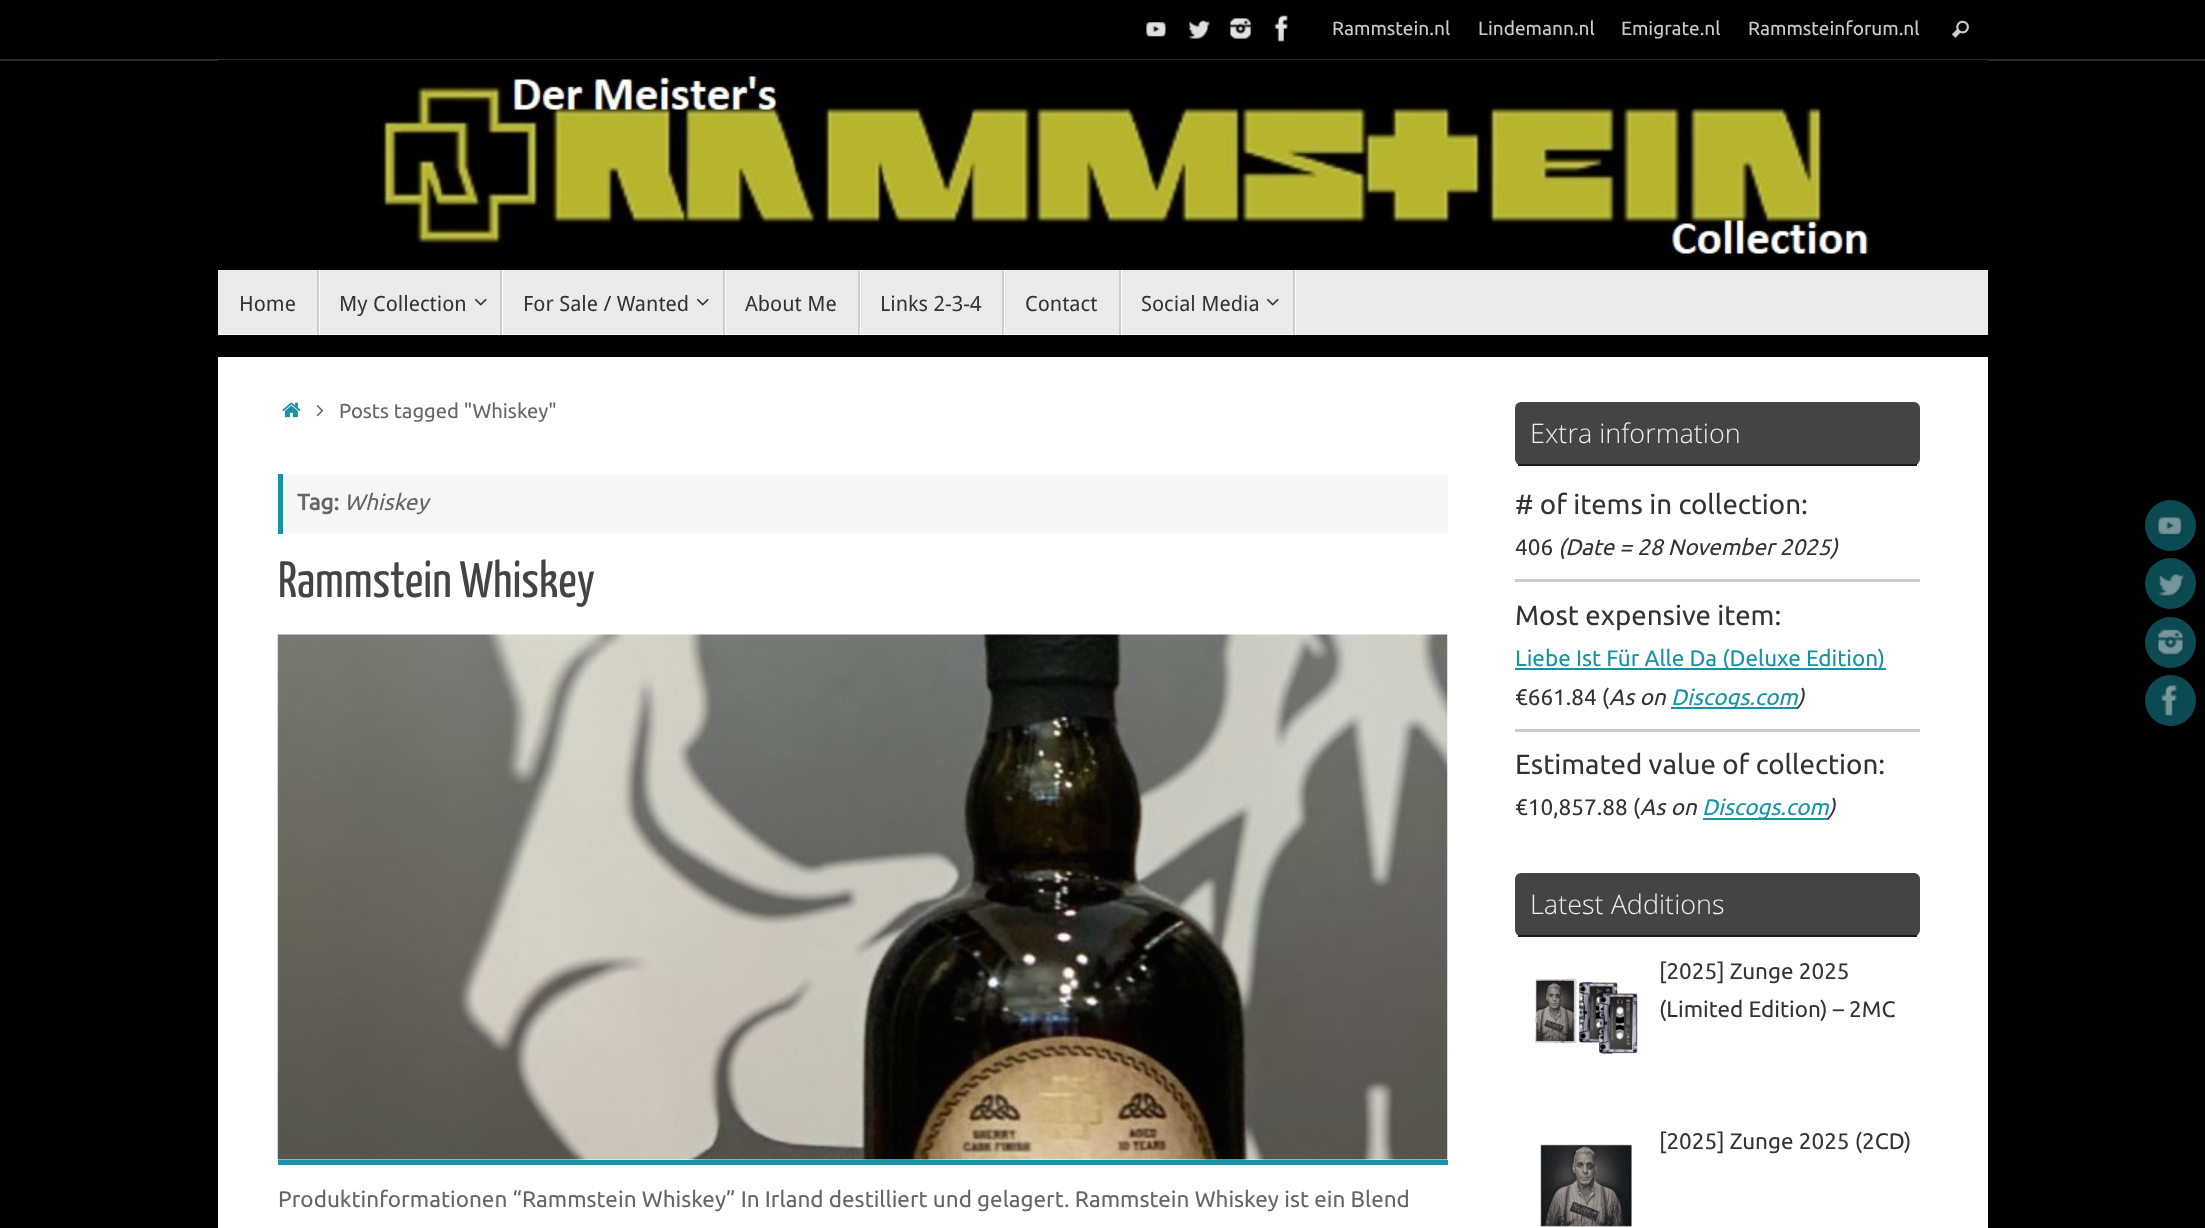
<!DOCTYPE html>
<meta charset="utf-8">
<style>body { margin: 0 } canvas { display: block }</style>
<canvas id="canvas" width="2205" height="1228"></canvas>
<img id="img1" src="img_01.png" hidden>
<img id="img2" src="img_02.png" hidden>
<img id="img3" src="img_03.png" hidden>
<img id="img4" src="img_04.png" hidden>
<img id="img5" src="img_05.png" hidden>
<img id="img6" src="img_06.png" hidden>
<img id="img7" src="img_07.png" hidden>
<img id="img8" src="img_08.png" hidden>
<img id="img9" src="img_09.png" hidden>
<img id="img10" src="img_10.png" hidden>
<img id="img11" src="img_11.png" hidden>
<img id="img12" src="img_12.png" hidden>
<img id="img13" src="img_13.png" hidden>
<img id="img14" src="img_14.png" hidden>
<img id="img15" src="img_15.png" hidden>
<img id="img16" src="img_16.png" hidden>
<script>
window.onload = function () {
	const canvas = document.getElementById("canvas");
	const ctx = canvas.getContext("2d");
	ctx.miterLimit = 4;
	ctx.fontKerning = "normal";
	function txt(s, x, y) {
		ctx.fillText(s, x, y);
	}
	function fill(x, y, w, h) {
		ctx.fillRect(x, y, w, h);
	}
	function round(x, y, w, h, r) {
		ctx.beginPath();
		ctx.roundRect(x, y, w, h, r);
		ctx.fill();
	}
	function img(id, x, y, w, h) {
		ctx.drawImage(document.getElementById(id), x, y, w, h);
	}

	ctx.fillStyle = "#000000";
	fill(0, 0, 2205, 1228);
	ctx.fillStyle = "#282828";
	fill(0, 59, 2205, 2);
	img("img1", 1146, 22, 20, 15);
	img("img2", 1188, 20, 22, 19);
	img("img3", 1230, 18, 21, 21);
	img("img4", 1274, 15, 14, 27);
	img("img5", 1951, 20, 18, 18);
	img("img6", 217, 60, 1771, 204);
	ctx.fillStyle = "#EAEAEA";
	fill(218, 270, 1770, 65);
	ctx.fillStyle = "#FFFFFF";
	ctx.beginPath();
	ctx.moveTo(219, 334);
	ctx.lineTo(219, 335);
	ctx.lineTo(320, 335);
	ctx.lineTo(320, 270);
	ctx.lineTo(318, 270);
	ctx.lineTo(318, 334);
	ctx.closePath();
	ctx.fill();
	ctx.fillStyle = "#CCCCCC";
	fill(317, 270, 2, 65);
	ctx.fillStyle = "#FFFFFF";
	ctx.beginPath();
	ctx.moveTo(320, 334);
	ctx.lineTo(320, 335);
	ctx.lineTo(503, 335);
	ctx.lineTo(503, 270);
	ctx.lineTo(501, 270);
	ctx.lineTo(501, 334);
	ctx.closePath();
	ctx.fill();
	ctx.fillStyle = "#CCCCCC";
	fill(500, 270, 2, 65);
	img("img7", 475, 298, 12, 8);
	ctx.fillStyle = "#FFFFFF";
	ctx.beginPath();
	ctx.moveTo(503, 334);
	ctx.lineTo(503, 335);
	ctx.lineTo(726, 335);
	ctx.lineTo(726, 270);
	ctx.lineTo(724, 270);
	ctx.lineTo(724, 334);
	ctx.closePath();
	ctx.fill();
	ctx.fillStyle = "#CCCCCC";
	fill(723, 270, 2, 65);
	img("img7", 697, 298, 12, 8);
	ctx.fillStyle = "#FFFFFF";
	ctx.beginPath();
	ctx.moveTo(726, 334);
	ctx.lineTo(726, 335);
	ctx.lineTo(861, 335);
	ctx.lineTo(861, 270);
	ctx.lineTo(860, 270);
	ctx.lineTo(860, 334);
	ctx.closePath();
	ctx.fill();
	ctx.fillStyle = "#CCCCCC";
	fill(858, 270, 2, 65);
	ctx.fillStyle = "#FFFFFF";
	ctx.beginPath();
	ctx.moveTo(861, 334);
	ctx.lineTo(861, 335);
	ctx.lineTo(1005, 335);
	ctx.lineTo(1005, 270);
	ctx.lineTo(1004, 270);
	ctx.lineTo(1004, 334);
	ctx.closePath();
	ctx.fill();
	ctx.fillStyle = "#CCCCCC";
	fill(1002, 270, 2, 65);
	ctx.fillStyle = "#FFFFFF";
	ctx.beginPath();
	ctx.moveTo(1005, 334);
	ctx.lineTo(1005, 335);
	ctx.lineTo(1122, 335);
	ctx.lineTo(1122, 270);
	ctx.lineTo(1120, 270);
	ctx.lineTo(1120, 334);
	ctx.closePath();
	ctx.fill();
	ctx.fillStyle = "#CCCCCC";
	fill(1119, 270, 2, 65);
	ctx.fillStyle = "#FFFFFF";
	ctx.beginPath();
	ctx.moveTo(1122, 334);
	ctx.lineTo(1122, 335);
	ctx.lineTo(1296, 335);
	ctx.lineTo(1296, 270);
	ctx.lineTo(1294, 270);
	ctx.lineTo(1294, 334);
	ctx.closePath();
	ctx.fill();
	ctx.fillStyle = "#CCCCCC";
	fill(1293, 270, 2, 65);
	img("img7", 1267, 298, 12, 8);
	ctx.fillStyle = "#FFFFFF";
	fill(218, 357, 1770, 871);
	img("img8", 282, 402, 19, 16);
	img("img9", 316, 405, 8, 12);
	ctx.fillStyle = "#F7F7F7";
	fill(283, 474, 1165, 60);
	ctx.fillStyle = "#1693A5";
	fill(278, 474, 5, 60);
	ctx.fillStyle = "#1894A6";
	fill(278, 1160, 1170, 5);
	img("img10", 277, 634, 1171, 526);
	ctx.fillStyle = "#444444";
	round(1515, 402, 405, 63, 6);
	ctx.fillStyle = "#1C1C1C";
	fill(1518, 464, 399, 2);
	ctx.fillStyle = "#CCCCCC";
	fill(1515, 579, 405, 3);
	ctx.fillStyle = "#1693A5";
	fill(1515, 668, 371, 2);
	fill(1671, 707, 126, 2);
	ctx.fillStyle = "#CCCCCC";
	fill(1515, 729, 405, 3);
	ctx.fillStyle = "#1693A5";
	fill(1703, 818, 126, 2);
	ctx.fillStyle = "#444444";
	round(1515, 873, 405, 63, 6);
	ctx.fillStyle = "#1C1C1C";
	fill(1518, 935, 399, 2);
	img("img11", 1535, 978, 103, 76);
	img("img12", 1540, 1144, 92, 83);
	ctx.fillStyle = "#0B4A53";
	ctx.beginPath();
	ctx.arc(2170.5, 525.5, 25.5, 0, Math.PI * 2);
	ctx.fill();
	img("img13", 2158, 517, 25, 19);
	ctx.beginPath();
	ctx.arc(2170.5, 583.5, 25.5, 0, Math.PI * 2);
	ctx.fill();
	img("img14", 2158, 574, 27, 23);
	ctx.beginPath();
	ctx.arc(2170.5, 642.5, 25.5, 0, Math.PI * 2);
	ctx.fill();
	img("img15", 2158, 629, 25, 27);
	ctx.beginPath();
	ctx.arc(2170.5, 700.5, 25.5, 0, Math.PI * 2);
	ctx.fill();
	img("img16", 2161, 685, 16, 33);
	ctx.font = "19.1px Ubuntu";
	ctx.fillStyle = "#CCCCCC";
	txt("Rammstein.nl", 1332, 35);
	txt("Lindemann.nl", 1478, 35);
	txt("Emigrate.nl", 1621, 35);
	txt("Rammsteinforum.nl", 1748, 35);
	ctx.font = "21px Droid Sans";
	ctx.fillStyle = "#333333";
	txt("Home", 239, 311);
	txt("My Collection", 339, 311);
	txt("For Sale / Wanted", 523, 311);
	txt("About Me", 745, 311);
	txt("Links 2-3-4", 880, 311);
	txt("Contact", 1025, 311);
	txt("Social Media", 1141, 311);
	ctx.font = "20.25px Ubuntu";
	ctx.fillStyle = "#666666";
	txt("Posts tagged \"Whiskey\"", 339, 418);
	ctx.font = "bold 22.5px Ubuntu";
	txt("Tag:", 297, 510);
	ctx.font = "italic 22.5px Ubuntu";
	txt("Whiskey", 344, 510);
	ctx.font = "51px Yanone Kaffeesatz";
	ctx.fillStyle = "#444444";
	txt("Rammstein Whiskey", 278, 597);
	ctx.font = "22.5px Ubuntu";
	ctx.fillStyle = "#666666";
	txt("Produktinformationen “Rammstein Whiskey” In Irland destilliert und gelagert. Rammstein Whiskey ist ein Blend", 278, 1207);
	ctx.font = "300 27px Open Sans";
	ctx.fillStyle = "#EEEEEE";
	txt("Extra information", 1530, 443);
	ctx.font = "27.7px Ubuntu";
	ctx.fillStyle = "#333333";
	txt("# of items in collection:", 1515, 514);
	ctx.font = "22.5px Ubuntu";
	txt("406", 1515, 555);
	ctx.font = "italic 22.5px Ubuntu";
	txt("(Date = 28 November 2025)", 1558, 555);
	ctx.font = "27.7px Ubuntu";
	txt("Most expensive item:", 1515, 625);
	ctx.font = "22.5px Ubuntu";
	ctx.fillStyle = "#1693A5";
	txt("Liebe Ist Für Alle Da (Deluxe Edition)", 1515, 666);
	ctx.fillStyle = "#333333";
	txt("€661.84 (", 1515, 705);
	ctx.font = "italic 22.5px Ubuntu";
	txt("As on", 1609, 705);
	ctx.fillStyle = "#1693A5";
	txt("Discogs.com", 1671, 705);
	ctx.fillStyle = "#333333";
	txt(")", 1797, 705);
	ctx.font = "27.7px Ubuntu";
	txt("Estimated value of collection:", 1515, 774);
	ctx.font = "22.5px Ubuntu";
	txt("€10,857.88 (", 1515, 815);
	ctx.font = "italic 22.5px Ubuntu";
	txt("As on", 1640, 815);
	ctx.fillStyle = "#1693A5";
	txt("Discogs.com", 1702, 815);
	ctx.fillStyle = "#333333";
	txt(")", 1828, 815);
	ctx.font = "300 27px Open Sans";
	ctx.fillStyle = "#EEEEEE";
	txt("Latest Additions", 1530, 914);
	ctx.font = "22.5px Ubuntu";
	ctx.fillStyle = "#333333";
	txt("[2025] Zunge 2025", 1659, 979);
	txt("(Limited Edition) – 2MC", 1659, 1017);
	txt("[2025] Zunge 2025 (2CD)", 1659, 1149);
};
</script>
